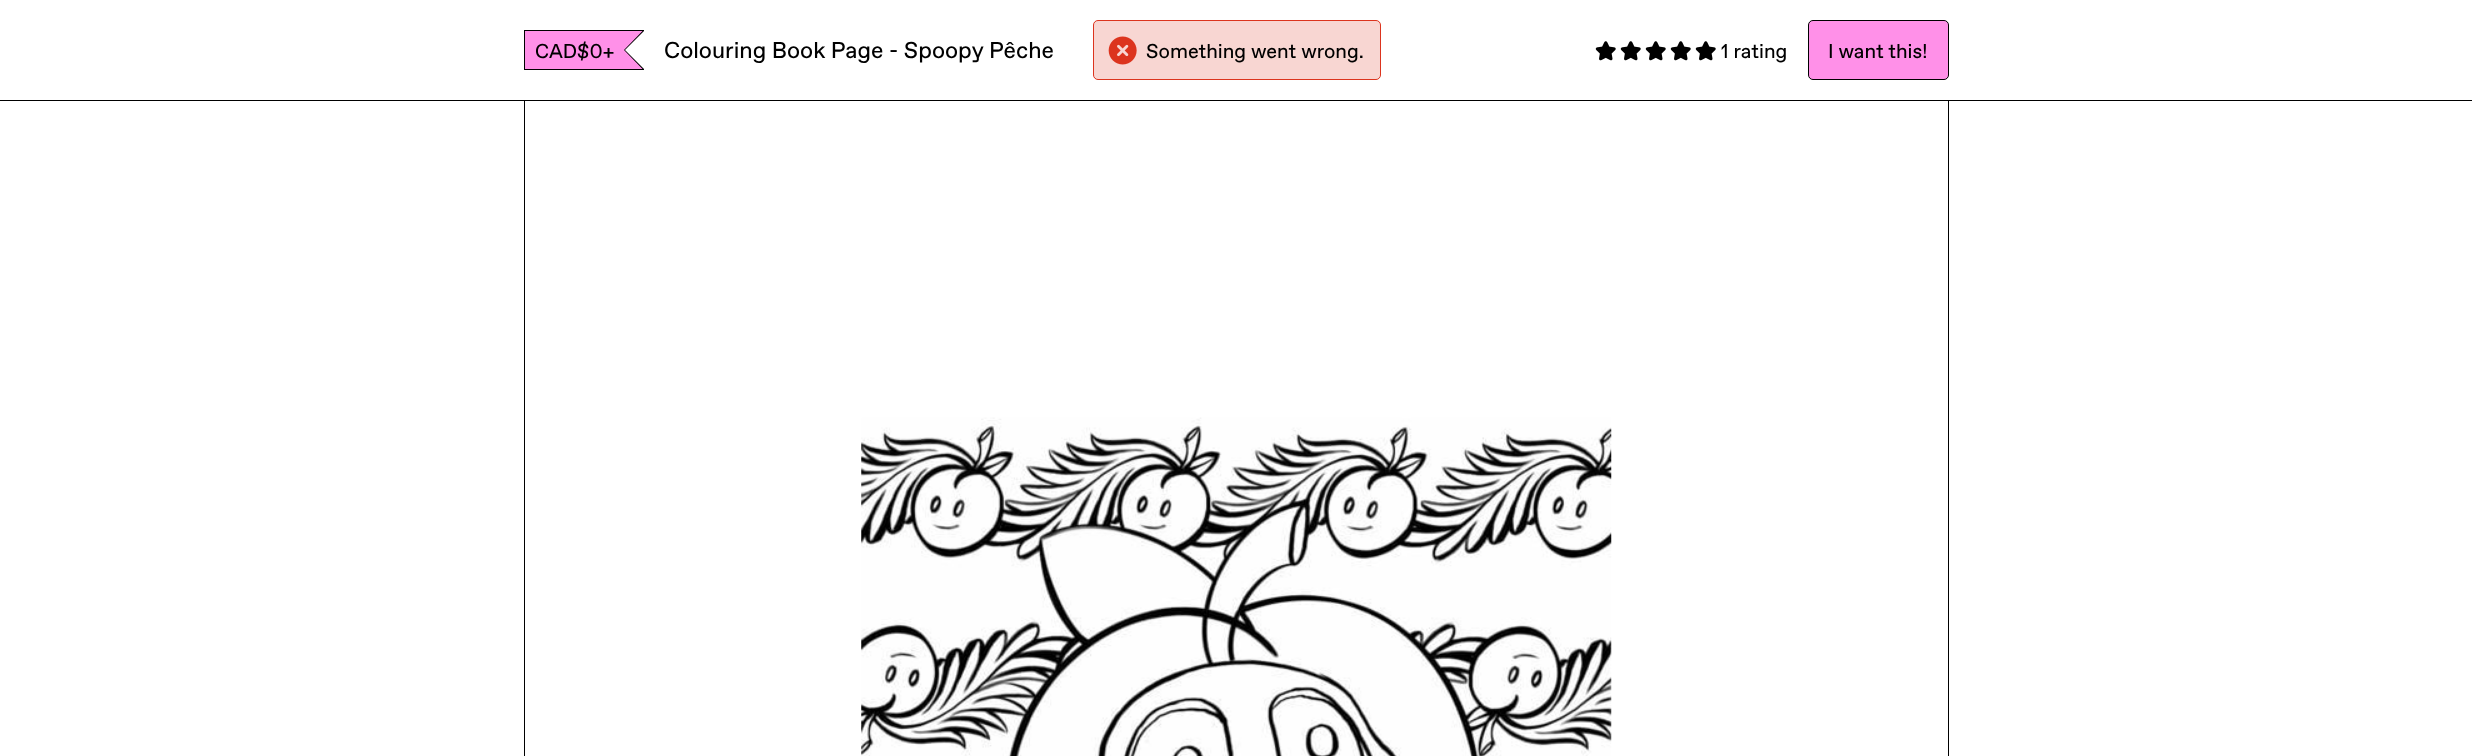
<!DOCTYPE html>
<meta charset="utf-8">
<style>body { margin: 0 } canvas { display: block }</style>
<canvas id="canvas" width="2472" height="756"></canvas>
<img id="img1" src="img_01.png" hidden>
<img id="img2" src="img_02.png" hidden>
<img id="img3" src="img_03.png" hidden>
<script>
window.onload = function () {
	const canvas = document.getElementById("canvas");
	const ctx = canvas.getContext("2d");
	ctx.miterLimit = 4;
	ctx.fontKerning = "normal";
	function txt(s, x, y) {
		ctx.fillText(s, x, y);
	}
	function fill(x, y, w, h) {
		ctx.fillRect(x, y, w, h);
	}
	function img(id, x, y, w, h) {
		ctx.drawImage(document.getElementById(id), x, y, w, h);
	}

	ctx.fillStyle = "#FFFFFF";
	fill(0, 0, 2472, 756);
	ctx.strokeStyle = "#000000";
	ctx.strokeRect(524.5, 80.5, 1424, 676);
	ctx.fillStyle = "#000000";
	ctx.beginPath();
	ctx.moveTo(0, 100);
	ctx.lineTo(0, 101);
	ctx.lineTo(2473, 101);
	ctx.lineTo(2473, 1);
	ctx.lineTo(2472, 1);
	ctx.lineTo(2472, 100);
	ctx.closePath();
	ctx.fill();
	ctx.fillStyle = "#FFFFFF";
	fill(524, 80, 1425, 20);
	ctx.fillStyle = "#000000";
	fill(524, 30, 120, 1);
	fill(524, 69, 120, 1);
	fill(524, 30, 1, 40);
	ctx.fillStyle = "#FF90E8";
	fill(525, 31, 99, 38);
	ctx.fillStyle = "#000000";
	ctx.beginPath();
	ctx.moveTo(624, 31);
	ctx.lineTo(644, 31);
	ctx.lineTo(625, 50);
	ctx.closePath();
	ctx.moveTo(644, 69);
	ctx.lineTo(624, 69);
	ctx.lineTo(625, 50);
	ctx.closePath();
	ctx.fill();
	fill(624, 49, 1, 2);
	ctx.fillStyle = "#FF90E8";
	ctx.beginPath();
	ctx.moveTo(622.5, 31);
	ctx.lineTo(642.5, 31);
	ctx.lineTo(624, 50);
	ctx.closePath();
	ctx.moveTo(642.5, 69);
	ctx.lineTo(622.5, 69);
	ctx.lineTo(624, 50);
	ctx.closePath();
	ctx.fill();
	img("img1", 1595, 41, 21, 20);
	img("img1", 1620, 41, 21, 20);
	img("img1", 1645, 41, 21, 20);
	img("img1", 1670, 41, 21, 20);
	img("img1", 1695, 41, 21, 20);
	ctx.beginPath();
	ctx.roundRect(1808.5, 20.5, 140, 59, 4.5);
	ctx.fill();
	ctx.stroke();
	img("img2", 861, 417, 751, 339);
	ctx.fillStyle = "#F8D6D2";
	ctx.beginPath();
	ctx.roundRect(1093.5, 20.5, 287, 59, 4.5);
	ctx.fill();
	ctx.strokeStyle = "#DC341E";
	ctx.stroke();
	img("img3", 1108, 36, 29, 29);
	ctx.font = "20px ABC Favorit";
	ctx.fillStyle = "#000000";
	txt("CAD$0+", 535, 58);
	ctx.font = "23px ABC Favorit";
	txt("Colouring Book Page - Spoopy Pêche", 664, 58);
	ctx.font = "20px ABC Favorit";
	txt("1 rating", 1721, 58);
	txt("I want this!", 1828, 58);
	txt("Something went wrong.", 1146, 58);
};
</script>
